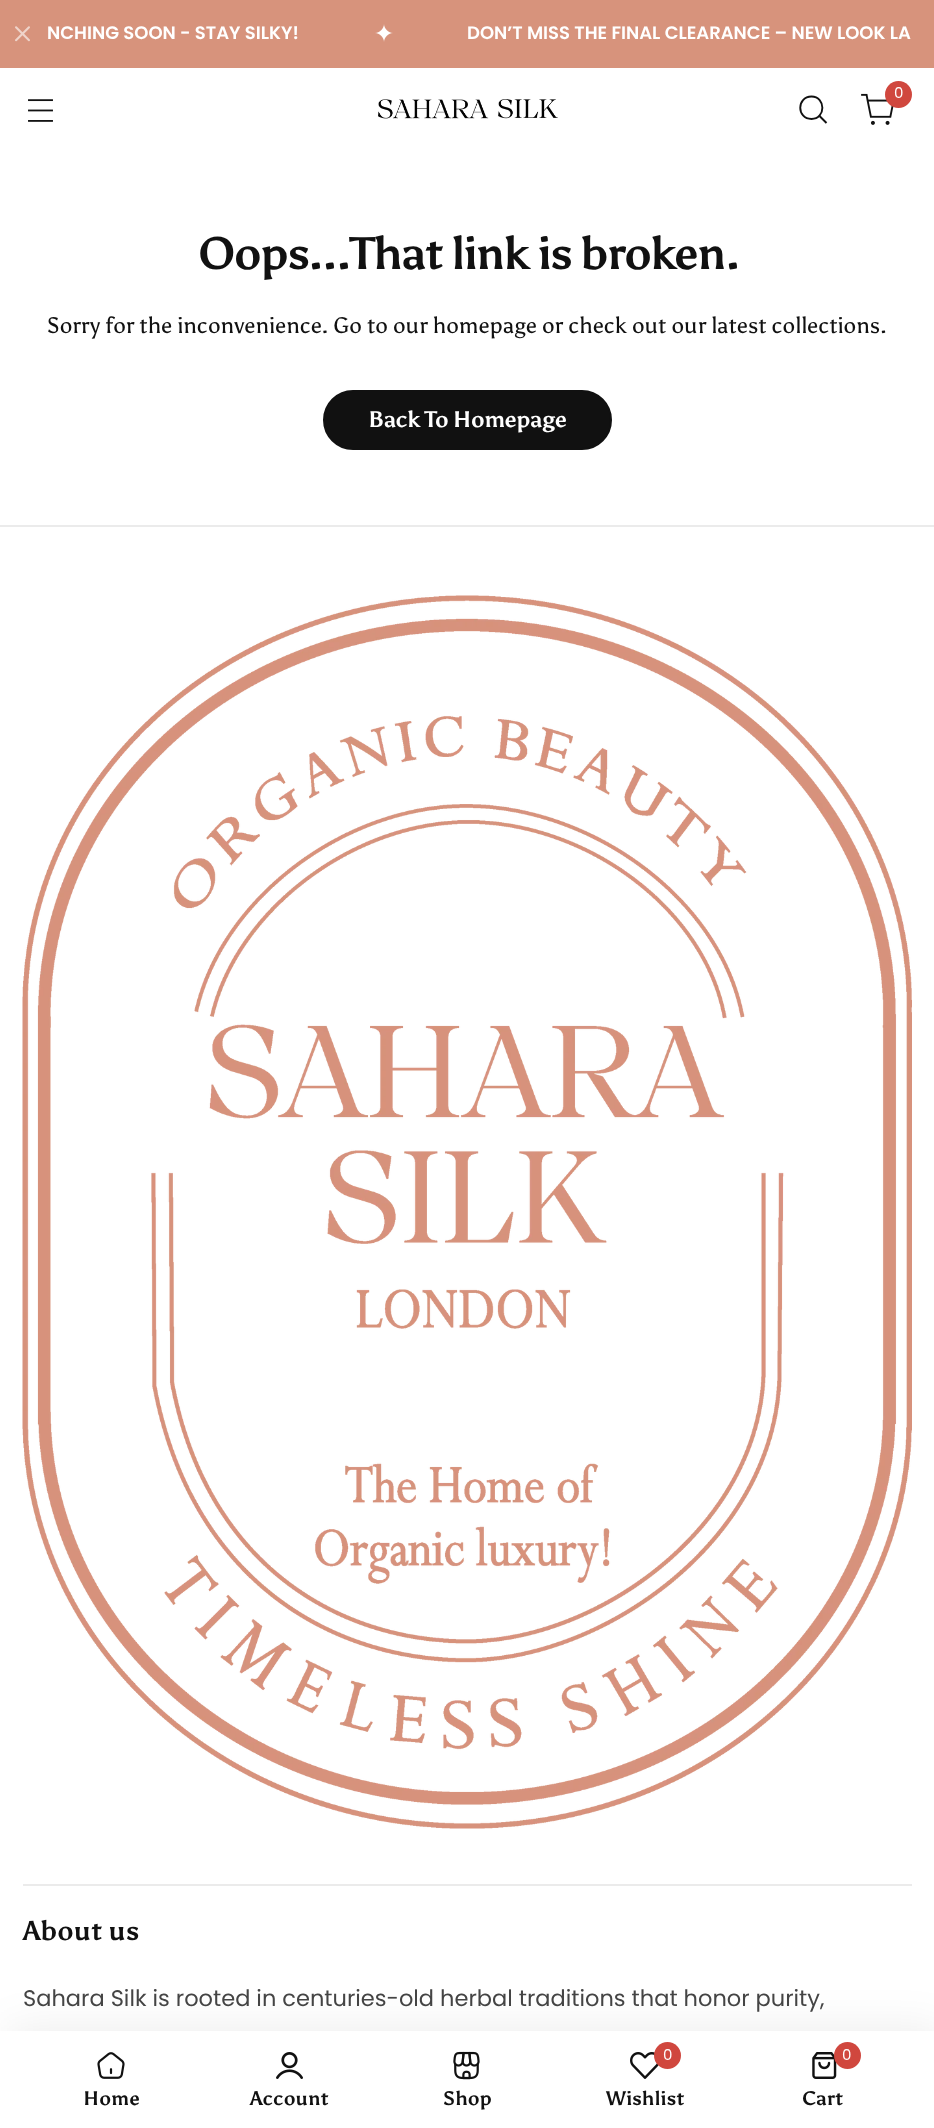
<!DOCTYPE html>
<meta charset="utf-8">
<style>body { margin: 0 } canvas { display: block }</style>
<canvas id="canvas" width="934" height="2128"></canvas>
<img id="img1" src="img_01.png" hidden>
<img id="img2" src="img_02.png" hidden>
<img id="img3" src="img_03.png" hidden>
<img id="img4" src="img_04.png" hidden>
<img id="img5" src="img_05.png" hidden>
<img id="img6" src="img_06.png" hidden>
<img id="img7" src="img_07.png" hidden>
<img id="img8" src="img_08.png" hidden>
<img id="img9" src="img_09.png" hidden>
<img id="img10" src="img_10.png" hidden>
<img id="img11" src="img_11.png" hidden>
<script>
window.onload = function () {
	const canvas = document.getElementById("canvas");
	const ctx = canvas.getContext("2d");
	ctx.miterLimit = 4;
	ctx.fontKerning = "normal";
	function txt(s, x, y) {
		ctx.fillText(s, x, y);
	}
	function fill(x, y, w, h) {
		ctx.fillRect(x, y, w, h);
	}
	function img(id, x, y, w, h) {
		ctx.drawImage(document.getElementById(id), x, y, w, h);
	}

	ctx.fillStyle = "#FFFFFF";
	fill(0, 0, 934, 2128);
	ctx.fillStyle = "#D7937C";
	fill(0, 0, 934, 68);
	img("img1", 15, 26, 15, 16);
	img("img2", 375, 24, 18, 18);
	img("img3", 861, 93, 33, 32);
	ctx.fillStyle = "#D0473E";
	ctx.beginPath();
	ctx.arc(898.5, 94.5, 13.5, 0, Math.PI * 2);
	ctx.fill();
	ctx.beginPath();
	ctx.moveTo(811.5, 119);
	ctx.bezierCurveTo(826, 119, 826, 96.5, 811.5, 96.5);
	ctx.bezierCurveTo(796.5, 96.5, 796.5, 119, 811.5, 119);
	ctx.closePath();
	ctx.strokeStyle = "#111111";
	ctx.lineWidth = 1.9;
	ctx.lineCap = "round";
	ctx.stroke();
	ctx.beginPath();
	ctx.moveTo(819.5, 116);
	ctx.lineTo(826.5, 123);
	ctx.lineCap = "butt";
	ctx.stroke();
	img("img4", 28, 99, 25, 23);
	img("img5", 378, 99, 180, 20);
	ctx.fillStyle = "#111111";
	ctx.beginPath();
	ctx.roundRect(324, 391, 287, 58, 29);
	ctx.fill();
	ctx.lineWidth = 2;
	ctx.stroke();
	ctx.fillStyle = "#EBEBEB";
	fill(0, 525, 934, 2);
	fill(23, 1884, 889, 2);
	img("img6", 22, 595, 890, 1234);
	ctx.fillStyle = "rgba(0, 0, 0, 0.08)";
	ctx.filter = "blur(22.5px)";
	ctx.beginPath();
	ctx.rect(8, 2031, 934, 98);
	ctx.fill();
	ctx.filter = "none";
	ctx.fillStyle = "#FFFFFF";
	fill(0, 2031, 934, 97);
	img("img7", 97, 2052, 28, 27);
	img("img8", 276, 2052, 27, 27);
	img("img9", 453, 2051, 27, 29);
	img("img10", 630, 2052, 29, 27);
	ctx.fillStyle = "#D0473E";
	ctx.beginPath();
	ctx.arc(667.5, 2055.5, 13.5, 0, Math.PI * 2);
	ctx.fill();
	img("img11", 812, 2052, 25, 27);
	ctx.beginPath();
	ctx.arc(847.5, 2055.5, 13.5, 0, Math.PI * 2);
	ctx.fill();
	ctx.font = "600 18px Poppins";
	ctx.fillStyle = "#FFFFFF";
	txt("NCHING SOON - STAY SILKY!", 47, 39);
	txt("DON’T MISS THE FINAL CLEARANCE – NEW LOOK LA", 467, 39);
	ctx.font = "15px Poppins";
	txt("0", 894, 98);
	ctx.letterSpacing = "-1.55px";
	ctx.font = "bold 45.5px Asul";
	ctx.fillStyle = "#111111";
	txt("Oops...That link is broken.", 198, 269);
	ctx.letterSpacing = "0px";
	ctx.font = "22.5px Asul";
	txt("Sorry for the inconvenience. Go to our homepage or check out our latest collections.", 47, 333);
	ctx.letterSpacing = "-0.5px";
	ctx.font = "bold 22.5px Asul";
	ctx.fillStyle = "#FFFFFF";
	txt("Back To Homepage", 368, 427);
	ctx.letterSpacing = "0px";
	ctx.font = "bold 27px Asul";
	ctx.fillStyle = "#111111";
	txt("About us", 23, 1940);
	ctx.font = "22.5px Poppins";
	ctx.fillStyle = "#444444";
	txt("Sahara Silk is rooted in centuries-old herbal traditions that honor purity,", 23, 2006);
	ctx.font = "bold 19.5px Asul";
	ctx.fillStyle = "#111111";
	txt("Home", 83, 2105);
	txt("Account", 250, 2105);
	txt("Shop", 443, 2105);
	ctx.font = "15px Poppins";
	ctx.fillStyle = "#FFFFFF";
	txt("0", 663, 2060);
	ctx.font = "bold 19.5px Asul";
	ctx.fillStyle = "#111111";
	txt("Wishlist", 606, 2105);
	ctx.font = "15px Poppins";
	ctx.fillStyle = "#FFFFFF";
	txt("0", 842, 2060);
	ctx.font = "bold 19.5px Asul";
	ctx.fillStyle = "#111111";
	txt("Cart", 802, 2105);
};
</script>
